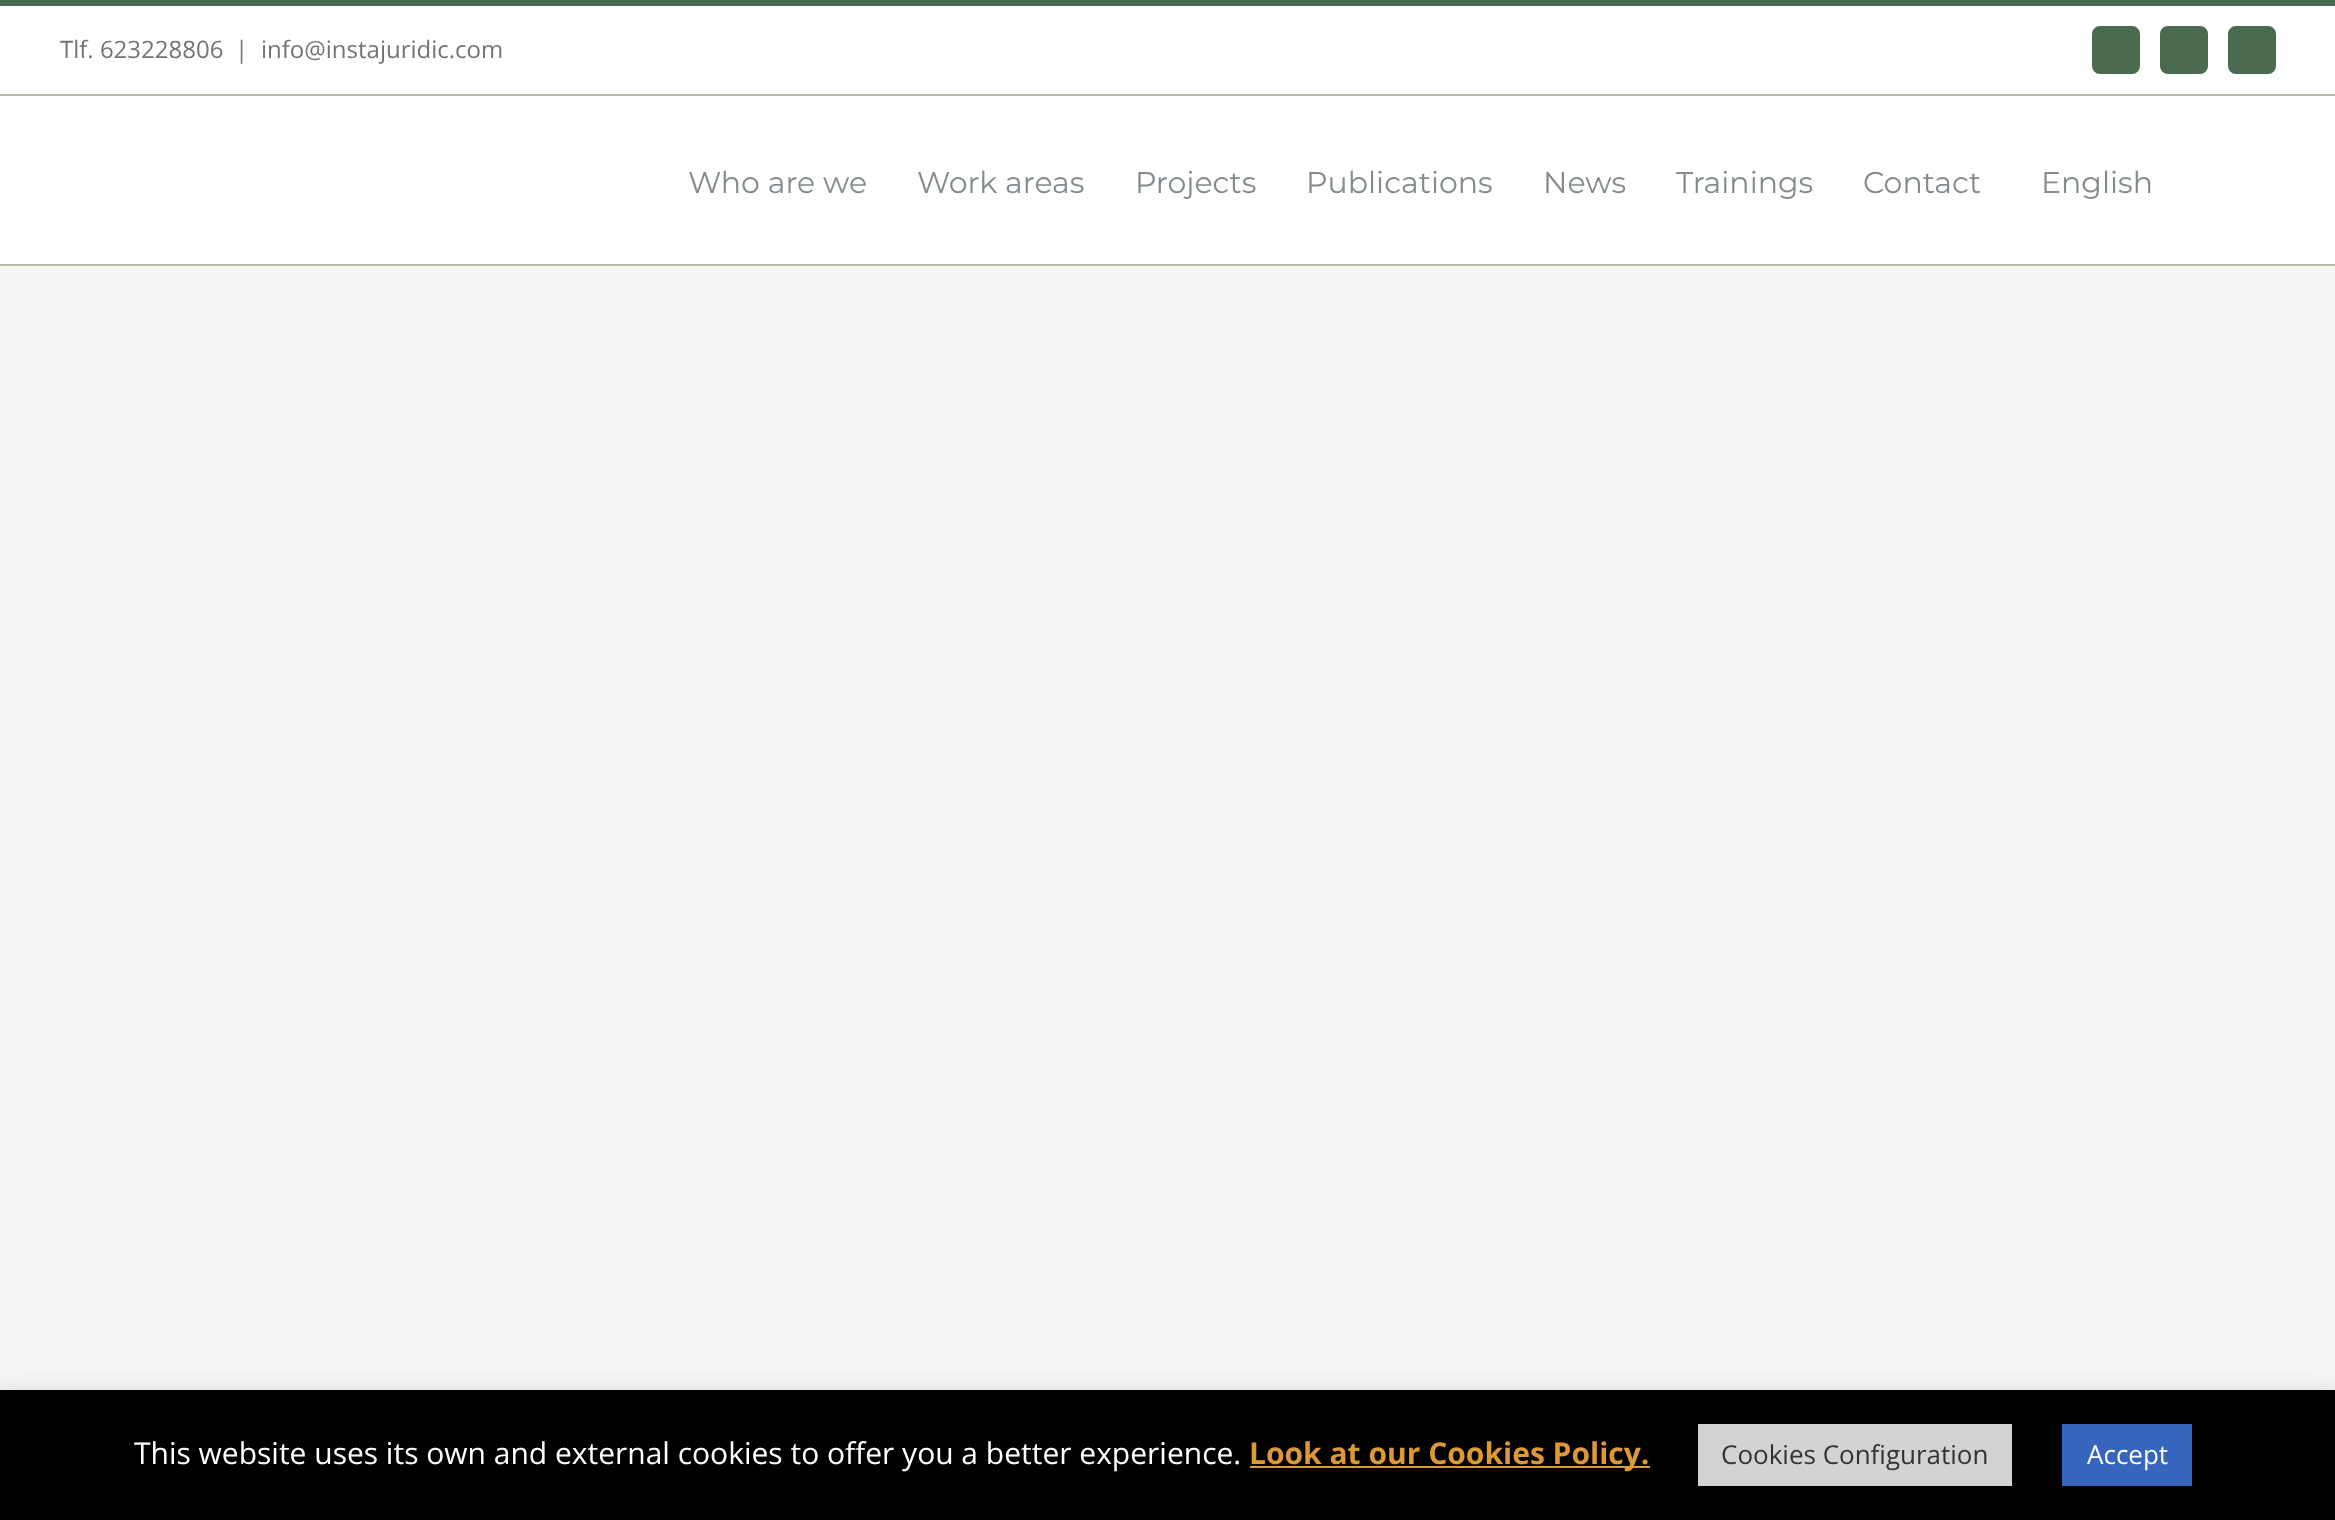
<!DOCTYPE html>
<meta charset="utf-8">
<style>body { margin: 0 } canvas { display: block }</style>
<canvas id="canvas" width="2335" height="1520"></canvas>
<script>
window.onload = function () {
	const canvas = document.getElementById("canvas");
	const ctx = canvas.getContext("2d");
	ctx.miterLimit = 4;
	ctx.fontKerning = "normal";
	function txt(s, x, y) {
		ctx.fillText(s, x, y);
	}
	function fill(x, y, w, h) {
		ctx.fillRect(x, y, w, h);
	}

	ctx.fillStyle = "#F5F5F5";
	fill(0, 0, 2335, 1520);
	ctx.fillStyle = "#FFFFFF";
	fill(0, 6, 2335, 88);
	ctx.fillStyle = "#4B6B51";
	fill(0, 0, 2335, 6);
	ctx.fillStyle = "#B6BEB0";
	fill(0, 94, 2335, 2);
	ctx.fillStyle = "#4B6B51";
	ctx.beginPath();
	ctx.roundRect(2093, 27, 46, 46, 7);
	ctx.fill();
	ctx.strokeStyle = "#4B6B51";
	ctx.lineWidth = 2;
	ctx.stroke();
	ctx.beginPath();
	ctx.roundRect(2161, 27, 46, 46, 7);
	ctx.fill();
	ctx.stroke();
	ctx.beginPath();
	ctx.roundRect(2229, 27, 46, 46, 7);
	ctx.fill();
	ctx.stroke();
	ctx.fillStyle = "#FFFFFF";
	fill(0, 96, 2335, 168);
	ctx.fillStyle = "#B6BEB0";
	fill(0, 264, 2335, 2);
	ctx.fillStyle = "rgba(172, 171, 171, 0.3)";
	ctx.filter = "blur(10px)";
	ctx.beginPath();
	ctx.rect(0, 1388, 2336, 130);
	ctx.fill();
	ctx.filter = "none";
	ctx.fillStyle = "#000000";
	fill(0, 1390, 2335, 130);
	ctx.fillStyle = "#DD9933";
	fill(1250, 1466, 400, 2);
	ctx.fillStyle = "#D3D3D3";
	fill(1698, 1424, 314, 62);
	ctx.fillStyle = "#3566BB";
	fill(2062, 1424, 130, 62);
	ctx.font = "24px Open Sans";
	ctx.fillStyle = "#747474";
	txt("Tlf. 623228806", 60, 58);
	txt("|", 235, 58);
	txt("info@instajuridic.com", 261, 58);
	ctx.font = "30px Montserrat";
	ctx.fillStyle = "#848B8E";
	txt("Who are we", 688, 193);
	txt("Work areas", 917, 193);
	txt("Projects", 1135, 193);
	txt("Publications", 1306, 193);
	txt("News", 1543, 193);
	txt("Trainings", 1676, 193);
	txt("Contact", 1863, 193);
	txt("English", 2041, 193);
	ctx.font = "30px Open Sans";
	ctx.fillStyle = "#FFFFFF";
	txt("This website uses its own and external cookies to offer you a better experience.", 134, 1464);
	ctx.font = "bold 30px Open Sans";
	ctx.fillStyle = "#DD9933";
	txt("Look at our Cookies Policy.", 1249, 1464);
	ctx.font = "26px Open Sans";
	ctx.fillStyle = "#333333";
	txt("Cookies Configuration", 1721, 1464);
	ctx.fillStyle = "#FFFFFF";
	txt("Accept", 2087, 1464);
};
</script>
